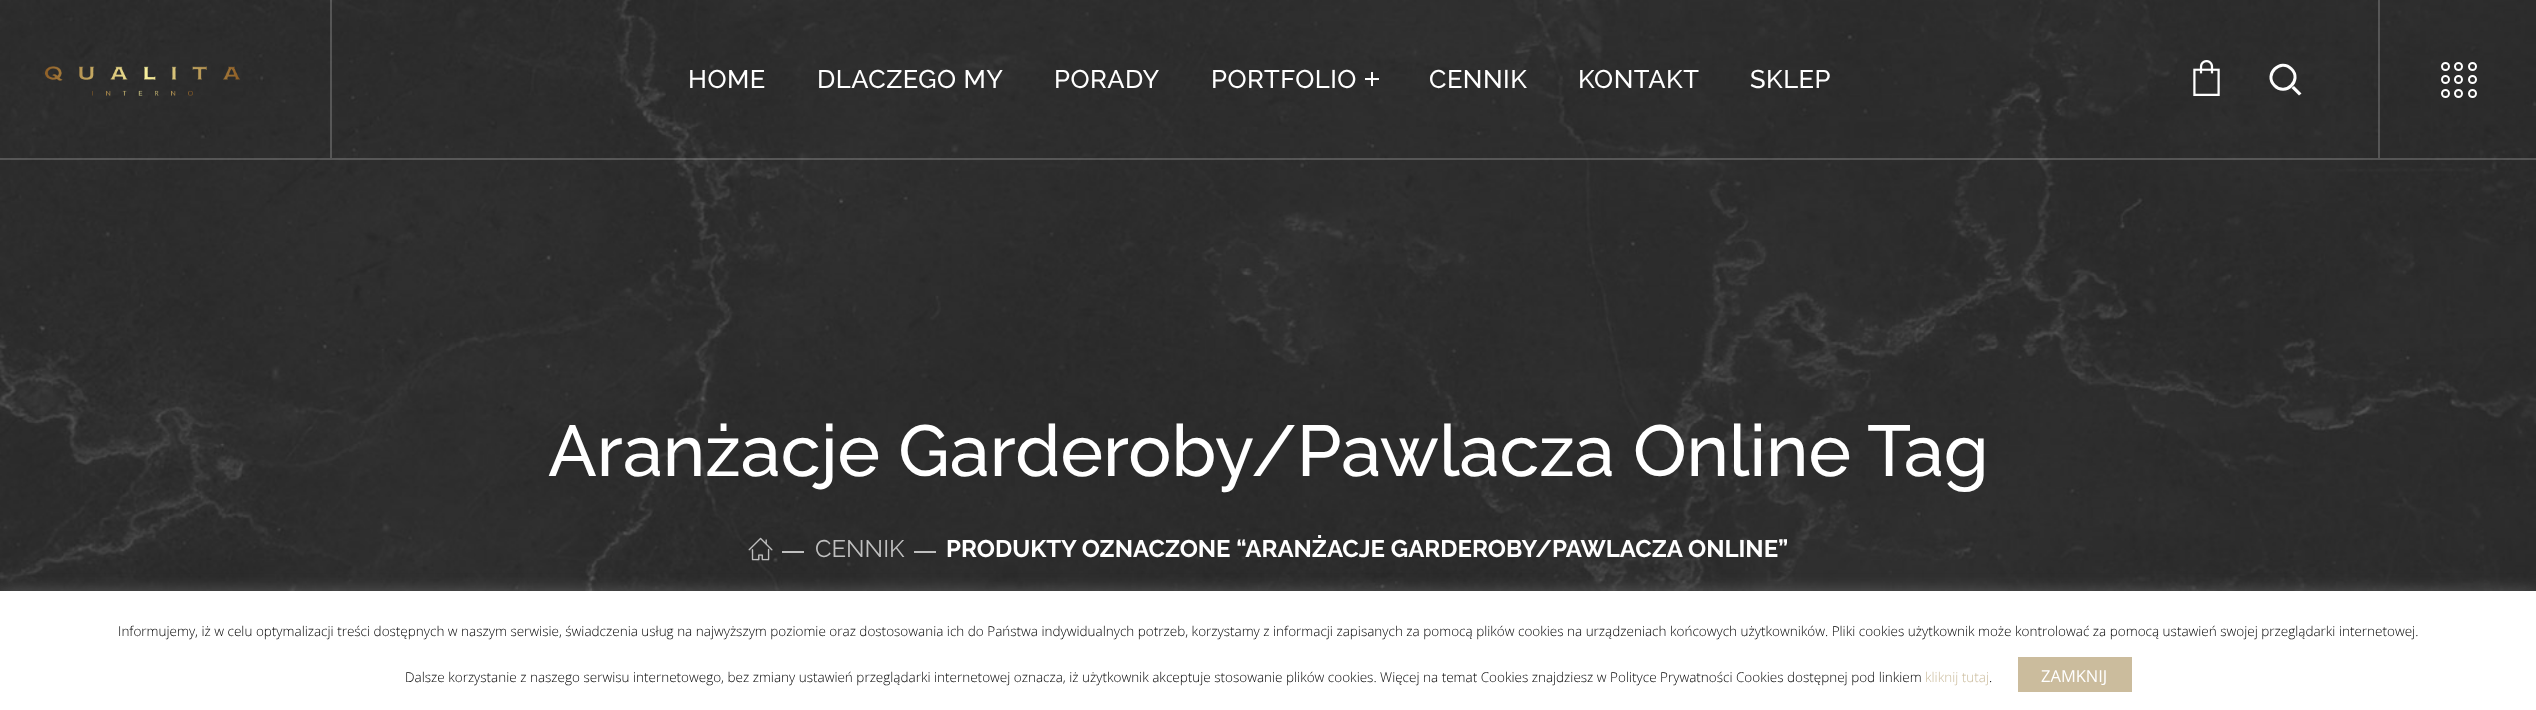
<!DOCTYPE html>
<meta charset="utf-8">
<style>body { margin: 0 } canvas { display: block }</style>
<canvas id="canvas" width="2536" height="710"></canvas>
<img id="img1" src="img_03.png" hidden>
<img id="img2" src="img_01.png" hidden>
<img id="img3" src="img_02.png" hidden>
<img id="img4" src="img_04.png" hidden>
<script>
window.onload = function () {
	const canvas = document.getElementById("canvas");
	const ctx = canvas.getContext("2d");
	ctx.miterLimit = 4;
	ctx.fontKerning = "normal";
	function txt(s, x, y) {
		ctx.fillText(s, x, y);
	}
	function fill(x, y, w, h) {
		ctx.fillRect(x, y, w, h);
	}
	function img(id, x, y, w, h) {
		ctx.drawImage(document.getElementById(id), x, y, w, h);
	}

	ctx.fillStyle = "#FFFFFF";
	fill(0, 0, 2536, 710);
	img("img1", 0, 0, 2536, 591);
	ctx.fillStyle = "rgba(255, 255, 255, 0.2)";
	fill(0, 158, 2536, 2);
	img("img2", 45, 66, 195, 30);
	fill(330, 0, 2, 158);
	ctx.fillStyle = "#FFFFFF";
	fill(1365, 78, 14, 2);
	fill(1371, 72, 2, 14);
	img("img3", 2193, 60, 27, 36);
	ctx.beginPath();
	ctx.moveTo(2291.5, 69);
	ctx.bezierCurveTo(2302.5, 80, 2285.5, 97, 2274.5, 85.5);
	ctx.bezierCurveTo(2263.5, 74.5, 2280.5, 57.5, 2291.5, 69);
	ctx.closePath();
	ctx.strokeStyle = "#FFFFFF";
	ctx.lineWidth = 3;
	ctx.stroke();
	ctx.beginPath();
	ctx.moveTo(2291.5, 88);
	ctx.lineTo(2294, 86);
	ctx.lineTo(2301.5, 93.5);
	ctx.lineTo(2299, 95.5);
	ctx.closePath();
	ctx.fill();
	ctx.fillStyle = "rgba(255, 255, 255, 0.2)";
	fill(2378, 0, 2, 158);
	ctx.beginPath();
	ctx.arc(2445.5, 66.5, 3.5, 0, Math.PI * 2);
	ctx.lineWidth = 2;
	ctx.stroke();
	ctx.beginPath();
	ctx.arc(2458.5, 66.5, 3.5, 0, Math.PI * 2);
	ctx.stroke();
	ctx.beginPath();
	ctx.arc(2472.5, 66.5, 3.5, 0, Math.PI * 2);
	ctx.stroke();
	ctx.beginPath();
	ctx.arc(2445.5, 79.5, 3.5, 0, Math.PI * 2);
	ctx.stroke();
	ctx.beginPath();
	ctx.arc(2458.5, 79.5, 3.5, 0, Math.PI * 2);
	ctx.stroke();
	ctx.beginPath();
	ctx.arc(2472.5, 79.5, 3.5, 0, Math.PI * 2);
	ctx.stroke();
	ctx.beginPath();
	ctx.arc(2445.5, 93.5, 3.5, 0, Math.PI * 2);
	ctx.stroke();
	ctx.beginPath();
	ctx.arc(2458.5, 93.5, 3.5, 0, Math.PI * 2);
	ctx.stroke();
	ctx.beginPath();
	ctx.arc(2472.5, 93.5, 3.5, 0, Math.PI * 2);
	ctx.stroke();
	img("img4", 748, 537, 25, 24);
	ctx.fillStyle = "#C0C0C0";
	fill(782, 551, 22, 2);
	fill(914, 551, 22, 2);
	ctx.fillStyle = "rgba(172, 171, 171, 0.3)";
	ctx.filter = "blur(7.5px)";
	ctx.beginPath();
	ctx.rect(0, 590, 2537, 120);
	ctx.fill();
	ctx.filter = "none";
	ctx.fillStyle = "#FFFFFF";
	fill(0, 591, 2536, 119);
	ctx.fillStyle = "#CBBC9D";
	fill(2018, 657, 114, 35);
	ctx.letterSpacing = "0.5px";
	ctx.font = "500 25.5px Raleway";
	ctx.fillStyle = "#FFFFFF";
	txt("HOME", 688, 88);
	txt("DLACZEGO MY", 817, 88);
	txt("PORADY", 1054, 88);
	txt("PORTFOLIO", 1211, 88);
	txt("CENNIK", 1429, 88);
	txt("KONTAKT", 1578, 88);
	txt("SKLEP", 1750, 88);
	ctx.letterSpacing = "0px";
	ctx.font = "500 72px Raleway";
	txt("Aranżacje Garderoby/Pawlacza Online Tag", 548, 476);
	ctx.font = "24px Raleway";
	ctx.fillStyle = "#C0C0C0";
	txt("CENNIK", 815, 557);
	ctx.font = "bold 24px Raleway";
	ctx.fillStyle = "#FFFFFF";
	txt("PRODUKTY OZNACZONE “ARANŻACJE GARDEROBY/PAWLACZA ONLINE”", 946, 557);
	ctx.font = "300 13.5px Open Sans";
	ctx.fillStyle = "#000000";
	txt("Informujemy, iż w celu optymalizacji treści dostępnych w naszym serwisie, świadczenia usług na najwyższym poziomie oraz dostosowania ich do Państwa indywidualnych potrzeb, korzystamy z informacji zapisanych za pomocą plików cookies na urządzeniach końcowych użytkowników. Pliki cookies użytkownik może kontrolować za pomocą ustawień swojej przeglądarki internetowej.", 118, 636);
	txt("Dalsze korzystanie z naszego serwisu internetowego, bez zmiany ustawień przeglądarki internetowej oznacza, iż użytkownik akceptuje stosowanie plików cookies. Więcej na temat Cookies znajdziesz w Polityce Prywatności Cookies dostępnej pod linkiem", 405, 682);
	ctx.fillStyle = "#CBBC9D";
	txt("kliknij tutaj", 1925, 682);
	ctx.fillStyle = "#000000";
	txt(".", 1989, 682);
	ctx.font = "16.5px Open Sans";
	ctx.fillStyle = "#FFFFFF";
	txt("ZAMKNIJ", 2041, 682);
};
</script>
